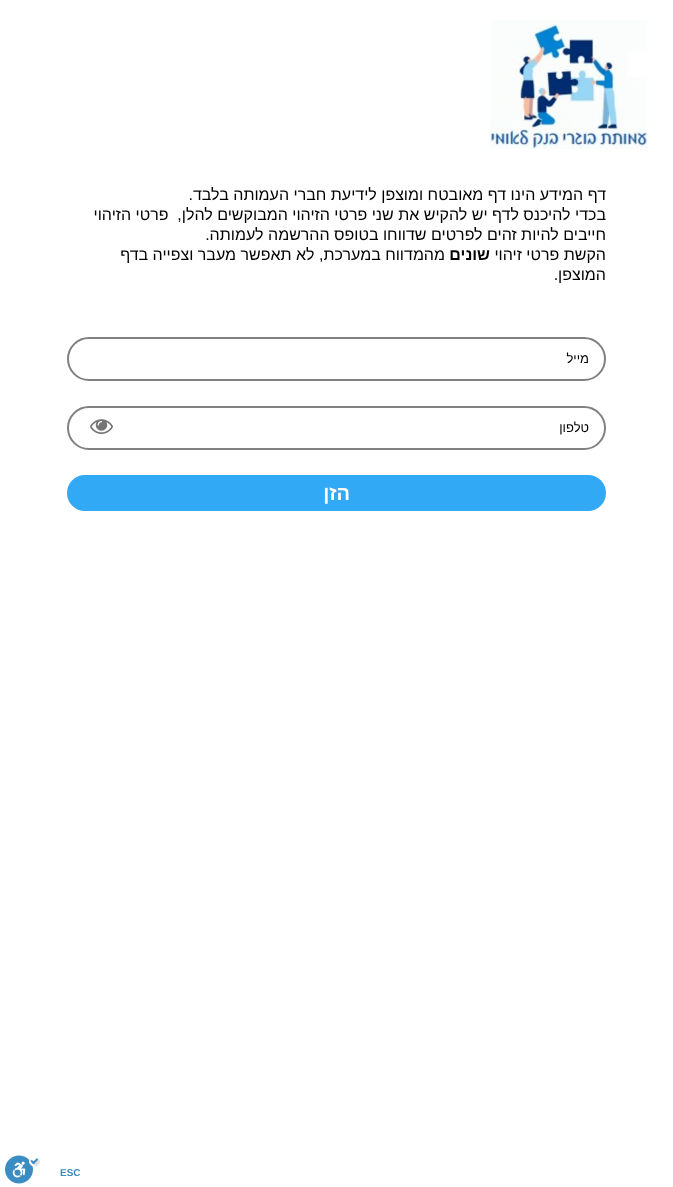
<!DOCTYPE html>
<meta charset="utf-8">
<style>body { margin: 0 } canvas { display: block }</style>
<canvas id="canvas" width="673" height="1187"></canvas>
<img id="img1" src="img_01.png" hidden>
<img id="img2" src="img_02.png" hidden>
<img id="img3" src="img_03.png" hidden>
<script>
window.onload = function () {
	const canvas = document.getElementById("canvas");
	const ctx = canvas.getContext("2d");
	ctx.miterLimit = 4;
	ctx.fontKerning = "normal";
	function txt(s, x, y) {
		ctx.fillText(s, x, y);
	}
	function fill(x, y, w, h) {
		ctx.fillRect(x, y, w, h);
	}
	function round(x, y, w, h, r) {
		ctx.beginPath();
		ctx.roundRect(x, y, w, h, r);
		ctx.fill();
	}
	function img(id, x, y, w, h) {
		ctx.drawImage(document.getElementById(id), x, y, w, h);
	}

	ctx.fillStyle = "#FFFFFF";
	fill(0, 0, 673, 1187);
	img("img1", 490, 20, 158, 129);
	ctx.beginPath();
	ctx.roundRect(68, 338, 537, 42, 21);
	ctx.strokeStyle = "#808080";
	ctx.lineWidth = 2;
	ctx.stroke();
	ctx.beginPath();
	ctx.roundRect(68, 407, 537, 42, 21);
	ctx.stroke();
	img("img2", 90, 419, 23, 15);
	ctx.fillStyle = "#32A9F5";
	round(67, 475, 539, 36, 18);
	img("img3", 5, 1155, 35, 29);
	ctx.direction = "rtl";
	ctx.font = "16px Liberation Sans";
	ctx.fillStyle = "#000000";
	txt("דף המידע הינו דף מאובטח ומוצפן לידיעת חברי העמותה בלבד.", 606, 200);
	txt("בכדי להיכנס לדף יש להקיש את שני פרטי הזיהוי המבוקשים להלן,  פרטי הזיהוי", 606, 220);
	txt("חייבים להיות זהים לפרטים שדווחו בטופס ההרשמה לעמותה.", 606, 240);
	txt("הקשת פרטי זיהוי", 606, 260);
	ctx.font = "bold 16px Liberation Sans";
	txt("שונים", 490, 260);
	ctx.font = "16px Liberation Sans";
	txt("מהמדווח במערכת, לא תאפשר מעבר וצפייה בדף", 445, 260);
	txt("המוצפן.", 606, 280);
	ctx.font = "13px Liberation Sans";
	txt("מייל", 589, 363);
	txt("טלפון", 589, 432);
	ctx.font = "bold 20px Liberation Sans";
	ctx.fillStyle = "#FFFFFF";
	txt("הזן", 350, 500);
	ctx.direction = "ltr";
	ctx.font = "bold 10px Liberation Sans";
	ctx.fillStyle = "#3A8DC2";
	txt("ESC", 60, 1176);
};
</script>
